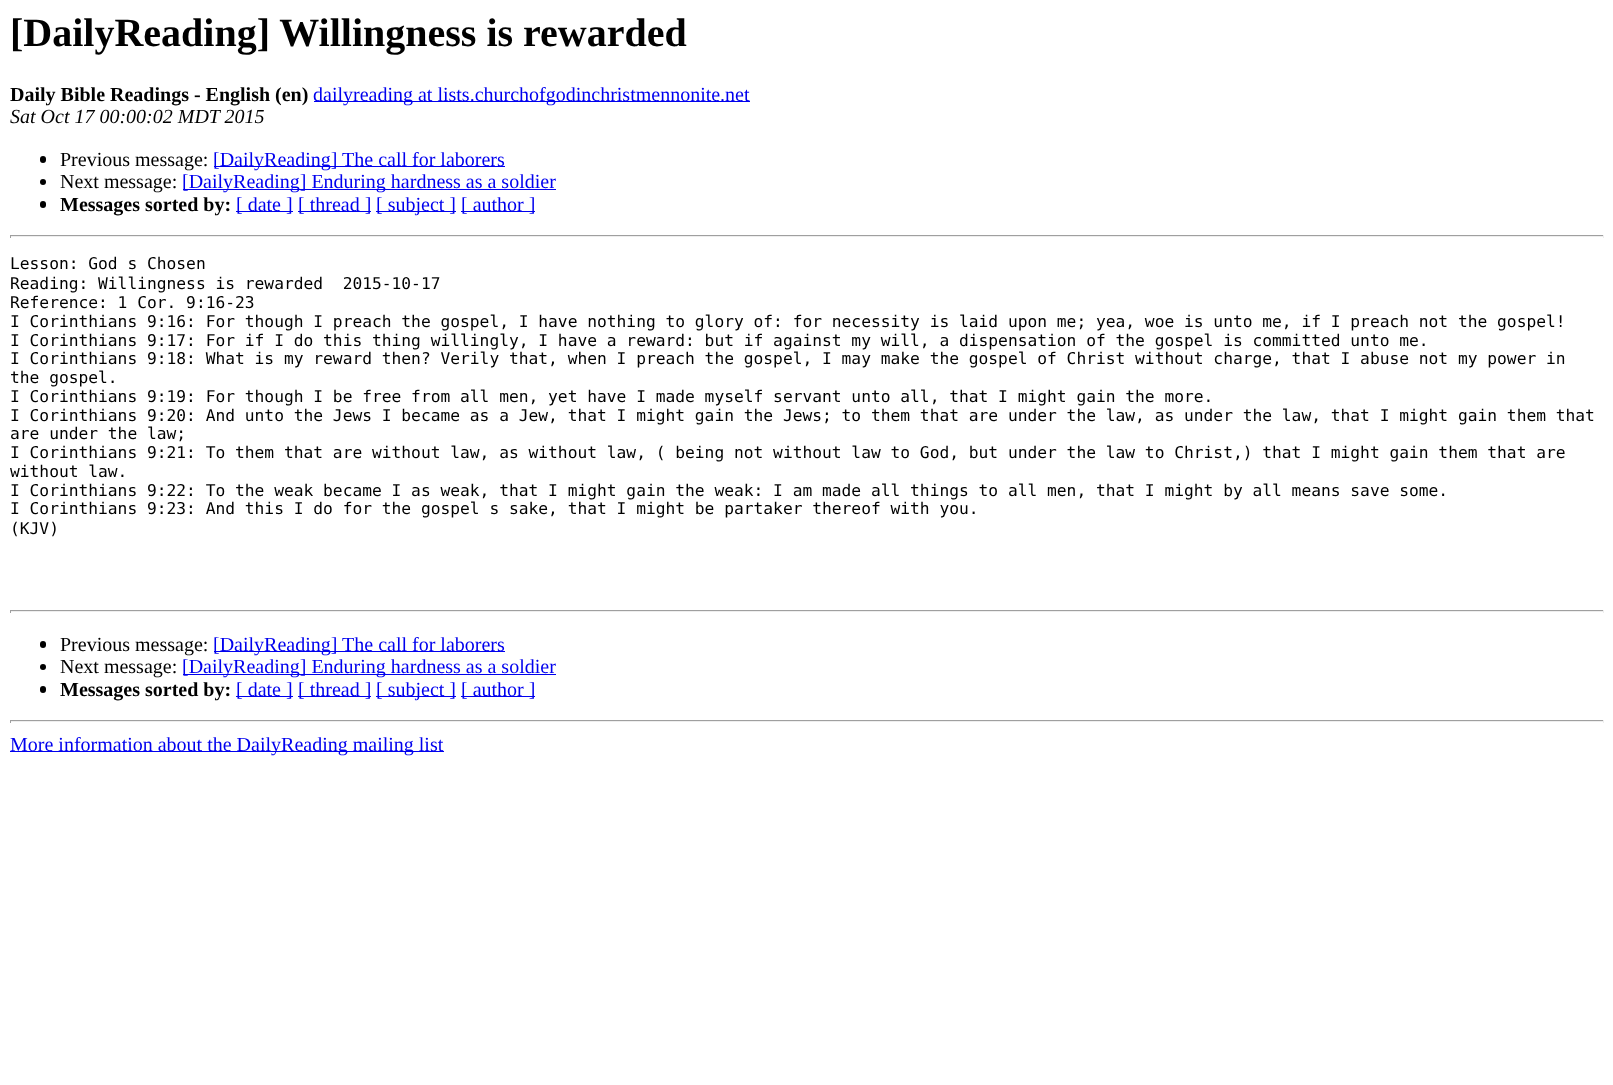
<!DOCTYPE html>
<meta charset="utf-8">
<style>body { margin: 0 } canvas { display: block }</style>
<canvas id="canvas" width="1613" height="1085"></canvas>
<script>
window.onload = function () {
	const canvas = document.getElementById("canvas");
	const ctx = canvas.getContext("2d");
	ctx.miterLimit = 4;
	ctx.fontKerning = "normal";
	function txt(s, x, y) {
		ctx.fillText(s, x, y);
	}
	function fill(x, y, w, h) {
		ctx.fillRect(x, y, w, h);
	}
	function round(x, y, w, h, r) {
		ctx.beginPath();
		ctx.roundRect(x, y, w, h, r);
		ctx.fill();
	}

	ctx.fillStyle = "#FFFFFF";
	fill(0, 0, 1613, 1085);
	ctx.fillStyle = "#0000EE";
	fill(314, 101, 436, 1);
	ctx.fillStyle = "#000000";
	round(40, 156, 6, 7, 3);
	ctx.fillStyle = "#0000EE";
	fill(214, 166, 291, 1);
	ctx.fillStyle = "#000000";
	ctx.beginPath();
	ctx.arc(43, 182, 3, 0, Math.PI * 2);
	ctx.fill();
	ctx.fillStyle = "#0000EE";
	fill(183, 189, 373, 1);
	ctx.fillStyle = "#000000";
	round(40, 201, 6, 7, 3);
	ctx.fillStyle = "#0000EE";
	fill(236, 211, 57, 1);
	fill(298, 211, 73, 1);
	fill(376, 211, 80, 1);
	fill(461, 211, 74, 1);
	ctx.fillStyle = "#9F9F9F";
	fill(10, 235, 1594, 1);
	ctx.fillStyle = "#EEEEEE";
	fill(1603, 235, 1, 3);
	fill(10, 236, 1594, 1);
	ctx.fillStyle = "#9F9F9F";
	fill(10, 235, 1, 3);
	fill(10, 610, 1594, 1);
	ctx.fillStyle = "#EEEEEE";
	fill(1603, 610, 1, 3);
	fill(10, 611, 1594, 1);
	ctx.fillStyle = "#9F9F9F";
	fill(10, 610, 1, 3);
	ctx.fillStyle = "#000000";
	round(40, 641, 6, 7, 3);
	ctx.fillStyle = "#0000EE";
	fill(214, 651, 291, 1);
	ctx.fillStyle = "#000000";
	ctx.beginPath();
	ctx.arc(43, 667, 3, 0, Math.PI * 2);
	ctx.fill();
	ctx.fillStyle = "#0000EE";
	fill(183, 674, 373, 1);
	ctx.fillStyle = "#000000";
	round(40, 686, 6, 7, 3);
	ctx.fillStyle = "#0000EE";
	fill(236, 696, 57, 1);
	fill(298, 696, 73, 1);
	fill(376, 696, 80, 1);
	fill(461, 696, 74, 1);
	ctx.fillStyle = "#9F9F9F";
	fill(10, 720, 1594, 1);
	ctx.fillStyle = "#EEEEEE";
	fill(1603, 720, 1, 3);
	fill(10, 721, 1594, 1);
	ctx.fillStyle = "#9F9F9F";
	fill(10, 720, 1, 3);
	ctx.fillStyle = "#0000EE";
	fill(10, 751, 434, 1);
	ctx.font = "bold 40px Liberation Serif";
	ctx.fillStyle = "#000000";
	txt("[DailyReading] Willingness is rewarded", 10, 46);
	ctx.font = "bold 20px Liberation Serif";
	txt("Daily Bible Readings - English (en)", 10, 101);
	ctx.font = "20px Liberation Serif";
	ctx.fillStyle = "#0000EE";
	txt("dailyreading at lists.churchofgodinchristmennonite.net", 313, 101);
	ctx.font = "italic 20px Liberation Serif";
	ctx.fillStyle = "#000000";
	txt("Sat Oct 17 00:00:02 MDT 2015", 10, 123);
	ctx.font = "20px Liberation Serif";
	txt("Previous message:", 60, 166);
	ctx.fillStyle = "#0000EE";
	txt("[DailyReading] The call for laborers", 213, 166);
	ctx.fillStyle = "#000000";
	txt("Next message:", 60, 188);
	ctx.fillStyle = "#0000EE";
	txt("[DailyReading] Enduring hardness as a soldier", 182, 188);
	ctx.font = "bold 20px Liberation Serif";
	ctx.fillStyle = "#000000";
	txt("Messages sorted by:", 60, 211);
	ctx.font = "20px Liberation Serif";
	ctx.fillStyle = "#0000EE";
	txt("[ date ]", 236, 211);
	txt("[ thread ]", 298, 211);
	txt("[ subject ]", 376, 211);
	txt("[ author ]", 461, 211);
	ctx.font = "16.25px DejaVu Sans Mono";
	ctx.fillStyle = "#000000";
	txt("Lesson: God s Chosen", 10, 269);
	txt("Reading: Willingness is rewarded  2015-10-17", 10, 289);
	txt("Reference: 1 Cor. 9:16-23", 10, 308);
	txt("I Corinthians 9:16: For though I preach the gospel, I have nothing to glory of: for necessity is laid upon me; yea, woe is unto me, if I preach not the gospel!", 10, 327);
	txt("I Corinthians 9:17: For if I do this thing willingly, I have a reward: but if against my will, a dispensation of the gospel is committed unto me.", 10, 346);
	txt("I Corinthians 9:18: What is my reward then? Verily that, when I preach the gospel, I may make the gospel of Christ without charge, that I abuse not my power in", 10, 364);
	txt("the gospel.", 10, 383);
	txt("I Corinthians 9:19: For though I be free from all men, yet have I made myself servant unto all, that I might gain the more.", 10, 402);
	txt("I Corinthians 9:20: And unto the Jews I became as a Jew, that I might gain the Jews; to them that are under the law, as under the law, that I might gain them that", 10, 421);
	txt("are under the law;", 10, 439);
	txt("I Corinthians 9:21: To them that are without law, as without law, ( being not without law to God, but under the law to Christ,) that I might gain them that are", 10, 458);
	txt("without law.", 10, 477);
	txt("I Corinthians 9:22: To the weak became I as weak, that I might gain the weak: I am made all things to all men, that I might by all means save some.", 10, 496);
	txt("I Corinthians 9:23: And this I do for the gospel s sake, that I might be partaker thereof with you.", 10, 514);
	txt("(KJV)", 10, 534);
	ctx.font = "20px Liberation Serif";
	txt("Previous message:", 60, 651);
	ctx.fillStyle = "#0000EE";
	txt("[DailyReading] The call for laborers", 213, 651);
	ctx.fillStyle = "#000000";
	txt("Next message:", 60, 673);
	ctx.fillStyle = "#0000EE";
	txt("[DailyReading] Enduring hardness as a soldier", 182, 673);
	ctx.font = "bold 20px Liberation Serif";
	ctx.fillStyle = "#000000";
	txt("Messages sorted by:", 60, 696);
	ctx.font = "20px Liberation Serif";
	ctx.fillStyle = "#0000EE";
	txt("[ date ]", 236, 696);
	txt("[ thread ]", 298, 696);
	txt("[ subject ]", 376, 696);
	txt("[ author ]", 461, 696);
	txt("More information about the DailyReading mailing list", 10, 751);
};
</script>
